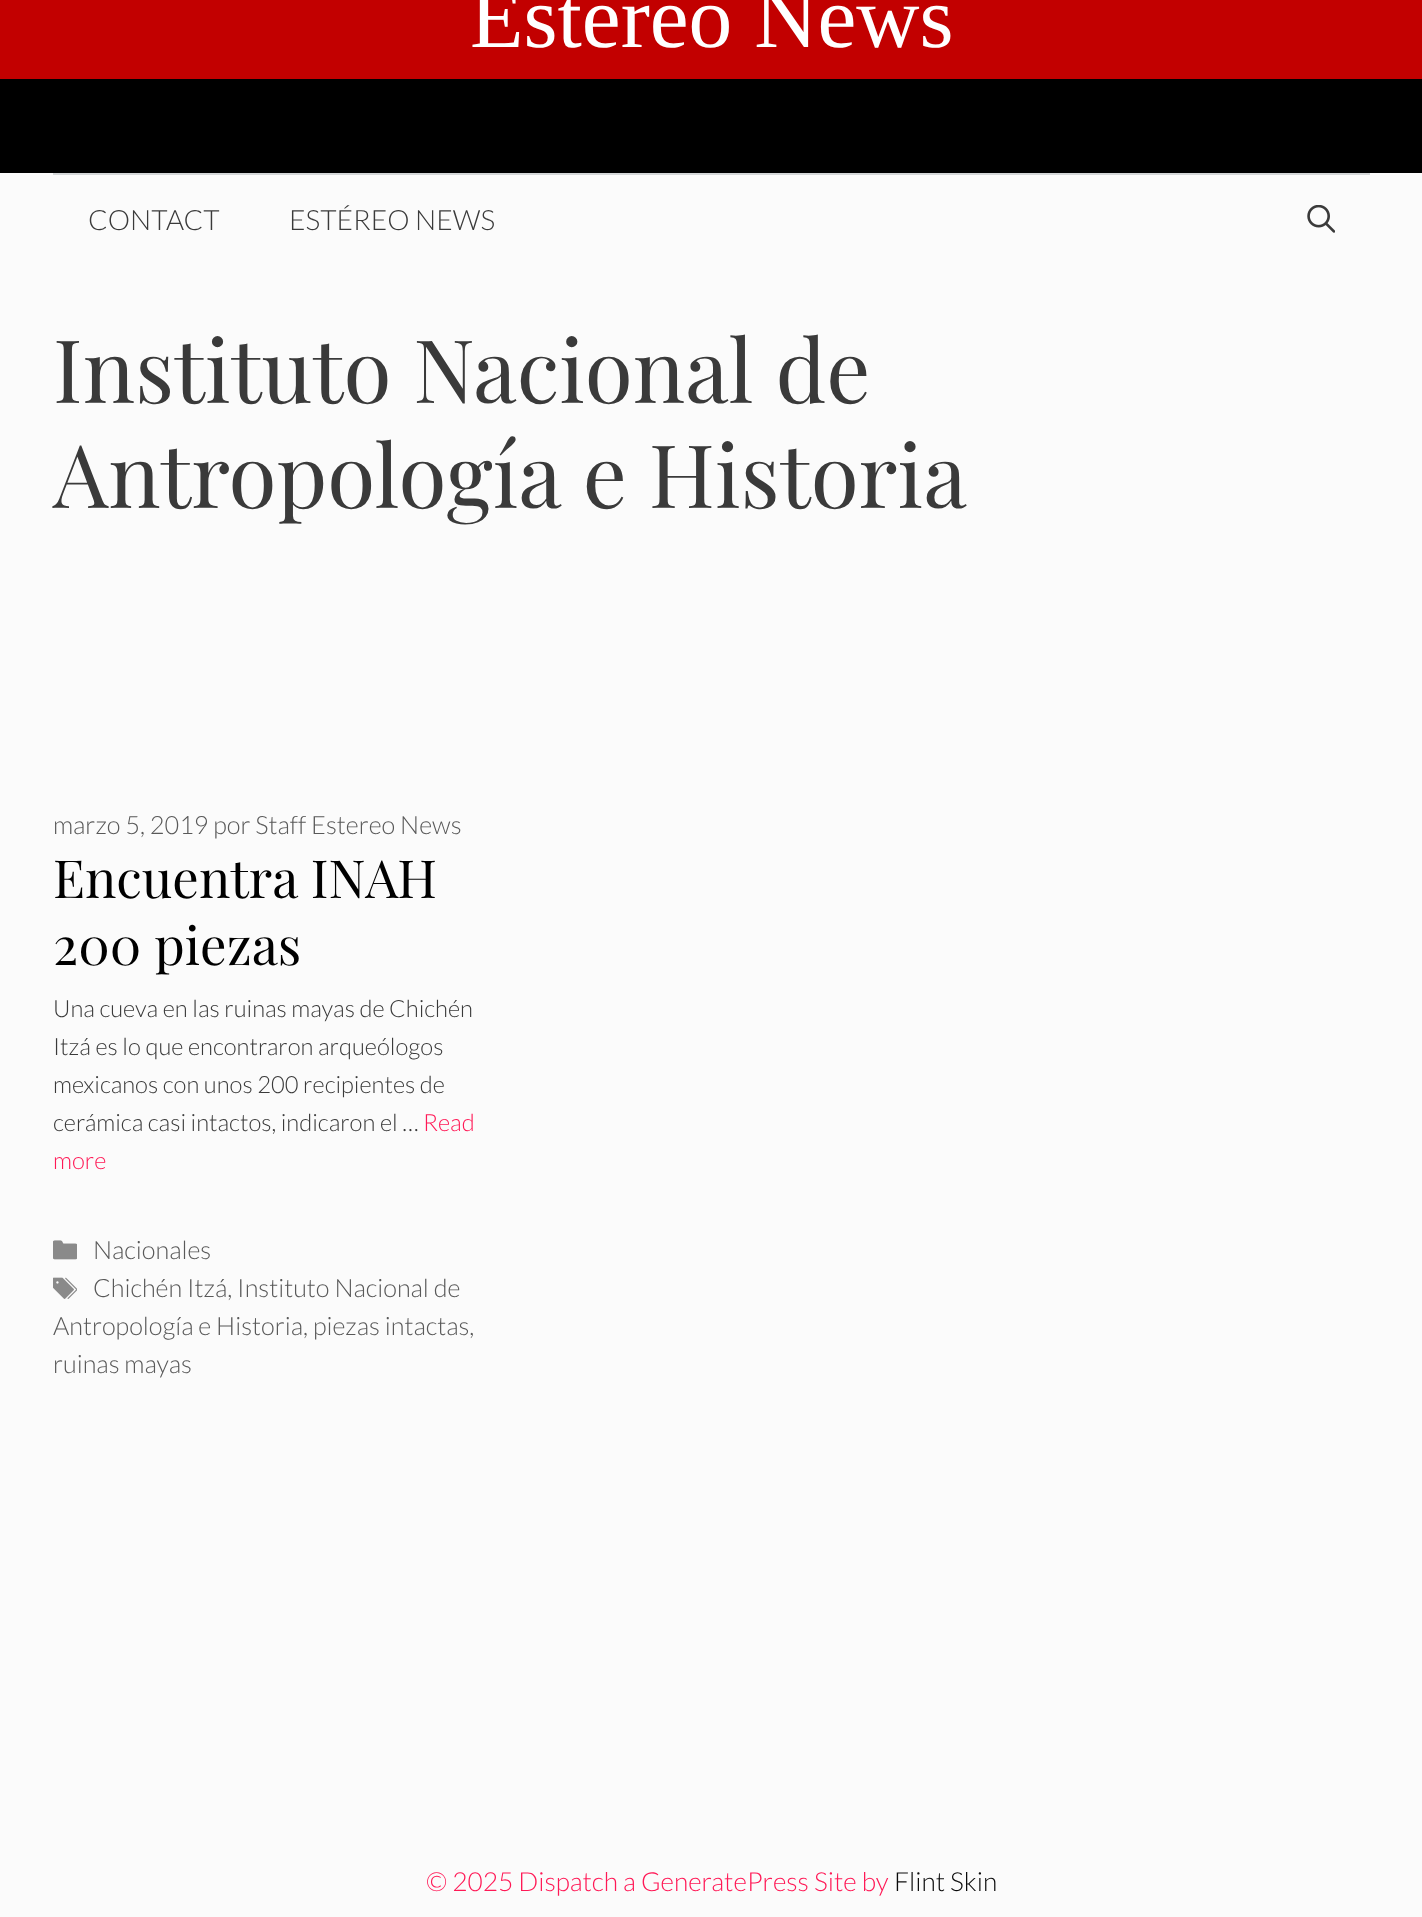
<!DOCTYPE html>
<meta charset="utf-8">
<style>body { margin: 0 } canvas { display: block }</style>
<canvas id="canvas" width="1422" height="1917"></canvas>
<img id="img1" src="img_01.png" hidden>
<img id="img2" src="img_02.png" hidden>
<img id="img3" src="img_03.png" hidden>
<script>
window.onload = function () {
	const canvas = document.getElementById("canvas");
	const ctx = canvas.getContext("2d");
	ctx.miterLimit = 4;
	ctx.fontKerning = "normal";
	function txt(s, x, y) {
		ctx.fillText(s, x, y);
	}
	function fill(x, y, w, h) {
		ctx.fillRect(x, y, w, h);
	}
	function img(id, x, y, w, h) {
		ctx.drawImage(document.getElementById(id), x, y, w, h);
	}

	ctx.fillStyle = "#FBFBFB";
	fill(0, 0, 1422, 1917);
	ctx.fillStyle = "#C20000";
	fill(0, 0, 1422, 79);
	ctx.fillStyle = "#000000";
	fill(0, 79, 1422, 94);
	ctx.fillStyle = "#D4D7D8";
	fill(53, 173, 1317, 2);
	img("img1", 1307, 205, 28, 28);
	img("img2", 53, 1240, 24, 20);
	img("img3", 53, 1277, 24, 22);
	ctx.font = "87.5px Liberation Serif";
	ctx.fillStyle = "#FFFFFF";
	txt("Estéreo News", 470, 47);
	ctx.font = "300 28px Lato";
	ctx.fillStyle = "#3A3A3A";
	txt("CONTACT", 88, 230);
	txt("ESTÉREO NEWS", 289, 230);
	ctx.font = "87.5px Playfair Display";
	txt("Instituto Nacional de", 53, 403);
	txt("Antropología e Historia", 53, 508);
	ctx.font = "300 25.25px Lato";
	ctx.fillStyle = "#595959";
	txt("marzo 5, 2019 por Staff Estereo News", 53, 834);
	ctx.font = "52.5px Playfair Display";
	ctx.fillStyle = "#000000";
	txt("Encuentra INAH", 53, 898);
	txt("200 piezas", 53, 965);
	ctx.font = "300 23.75px Lato";
	ctx.fillStyle = "#3A3A3A";
	txt("Una cueva en las ruinas mayas de Chichén", 53, 1017);
	txt("Itzá es lo que encontraron arqueólogos", 53, 1055);
	txt("mexicanos con unos 200 recipientes de", 53, 1093);
	txt("cerámica casi intactos, indicaron el …", 53, 1131);
	ctx.fillStyle = "#FF1956";
	txt("Read", 423, 1131);
	txt("more", 53, 1169);
	ctx.font = "300 25.25px Lato";
	ctx.fillStyle = "#595959";
	txt("Nacionales", 93, 1259);
	txt("Chichén Itzá, Instituto Nacional de", 93, 1297);
	txt("Antropología e Historia, piezas intactas,", 53, 1335);
	txt("ruinas mayas", 53, 1373);
	ctx.font = "300 26.25px Lato";
	ctx.fillStyle = "#FF1956";
	txt("© 2025 Dispatch a GeneratePress Site by", 426, 1891);
	ctx.fillStyle = "#0A0A0A";
	txt("Flint Skin", 894, 1891);
};
</script>
